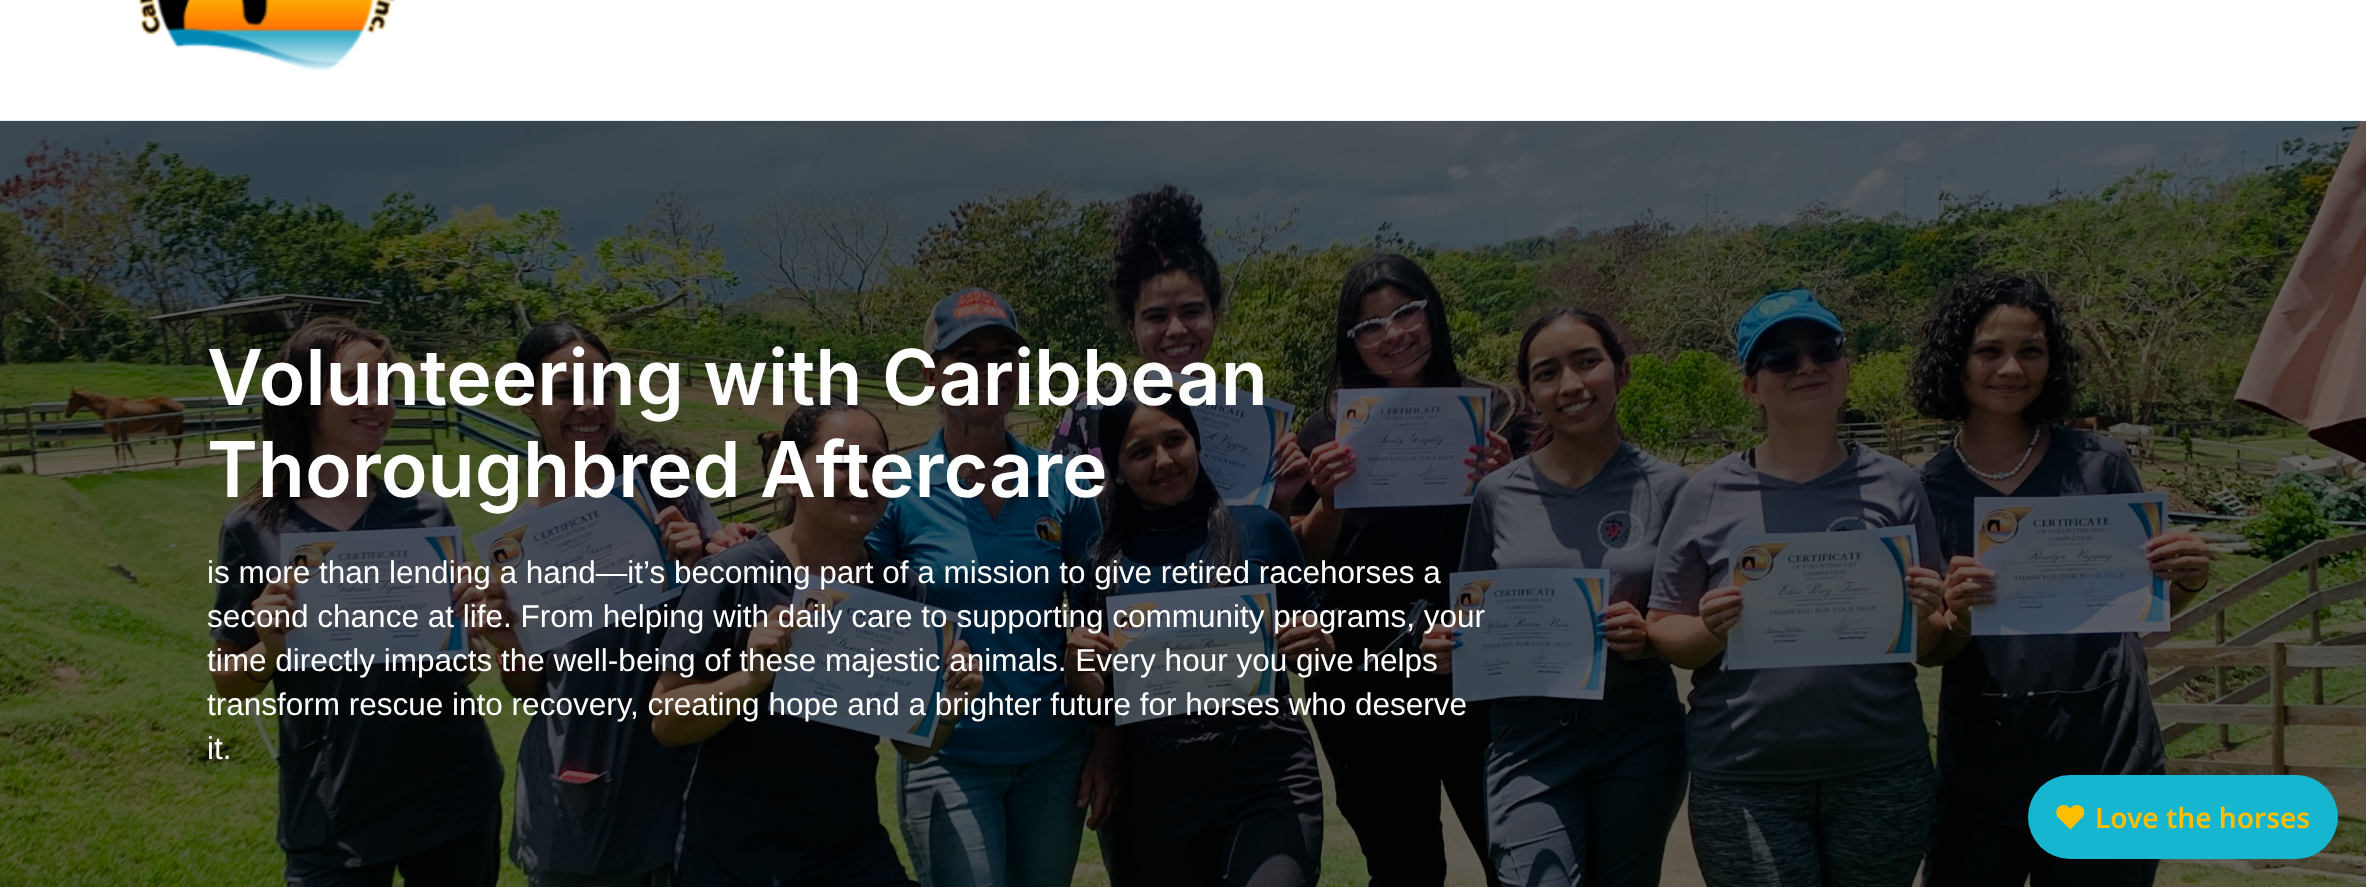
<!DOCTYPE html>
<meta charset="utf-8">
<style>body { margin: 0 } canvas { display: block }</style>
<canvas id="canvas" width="2366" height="887"></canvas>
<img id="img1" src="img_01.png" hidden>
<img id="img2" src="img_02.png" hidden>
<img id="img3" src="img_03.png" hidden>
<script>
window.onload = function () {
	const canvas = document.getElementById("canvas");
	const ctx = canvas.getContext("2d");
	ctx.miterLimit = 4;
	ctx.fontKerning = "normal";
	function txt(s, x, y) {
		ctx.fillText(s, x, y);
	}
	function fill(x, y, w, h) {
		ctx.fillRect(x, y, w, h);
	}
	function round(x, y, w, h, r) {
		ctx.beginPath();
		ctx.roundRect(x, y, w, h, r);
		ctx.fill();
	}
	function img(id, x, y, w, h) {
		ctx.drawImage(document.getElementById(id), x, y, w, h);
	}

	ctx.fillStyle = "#FFFFFF";
	fill(0, 0, 2366, 887);
	img("img1", 138, 0, 258, 71);
	img("img2", 0, 120, 2366, 767);
	ctx.fillStyle = "#16B6D1";
	round(2028, 775, 310, 84, 42);
	img("img3", 2056, 805, 28, 25);
	ctx.font = "600 77px Inter";
	ctx.fillStyle = "#FFFFFF";
	txt("Volunteering with Caribbean", 207, 405);
	txt("Thoroughbred Aftercare", 207, 497);
	ctx.font = "31.5px Liberation Sans";
	txt("is more than lending a hand—it’s becoming part of a mission to give retired racehorses a", 207, 583);
	txt("second chance at life. From helping with daily care to supporting community programs, your", 207, 627);
	txt("time directly impacts the well-being of these majestic animals. Every hour you give helps", 207, 671);
	txt("transform rescue into recovery, creating hope and a brighter future for horses who deserve", 207, 715);
	txt("it.", 207, 759);
	ctx.font = "600 28px Noto Sans";
	ctx.fillStyle = "#FFBF00";
	txt("Love the horses", 2095, 828);
};
</script>
